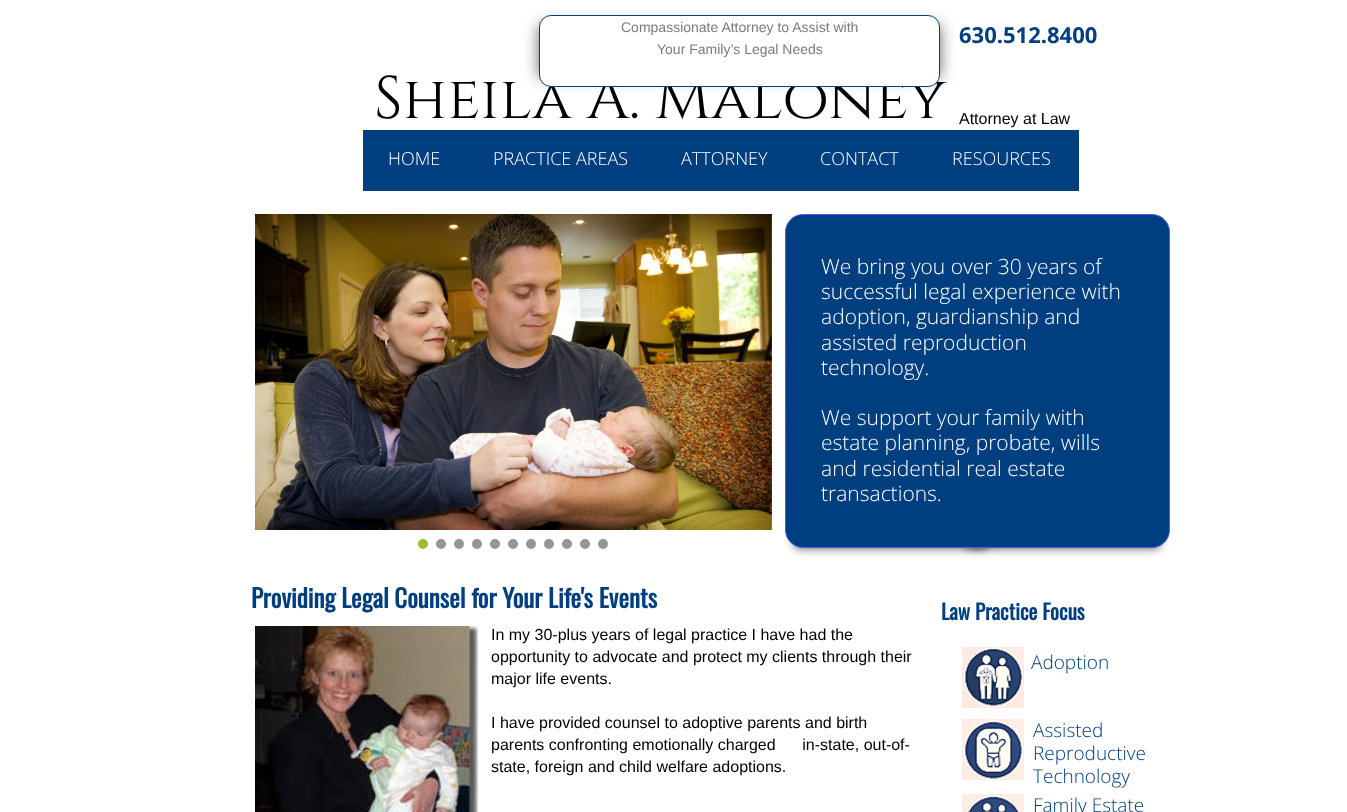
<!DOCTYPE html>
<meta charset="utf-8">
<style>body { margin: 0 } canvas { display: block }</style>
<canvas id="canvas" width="1347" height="812"></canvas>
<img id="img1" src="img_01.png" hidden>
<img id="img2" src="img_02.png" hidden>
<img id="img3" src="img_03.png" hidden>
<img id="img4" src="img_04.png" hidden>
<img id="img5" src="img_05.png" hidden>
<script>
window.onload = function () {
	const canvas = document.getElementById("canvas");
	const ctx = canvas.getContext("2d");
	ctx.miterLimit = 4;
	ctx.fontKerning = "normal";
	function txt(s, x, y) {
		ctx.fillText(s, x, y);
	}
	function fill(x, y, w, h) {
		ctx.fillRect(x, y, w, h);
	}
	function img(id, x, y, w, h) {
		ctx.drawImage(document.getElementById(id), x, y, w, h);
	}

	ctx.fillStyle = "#FFFFFF";
	fill(0, 0, 1347, 812);
	ctx.fillStyle = "rgba(0, 0, 0, 0.6)";
	ctx.filter = "blur(7.5px)";
	ctx.beginPath();
	ctx.roundRect(539, 25, 401, 52, 2.5);
	ctx.fill();
	ctx.filter = "none";
	ctx.fillStyle = "#003F7F";
	fill(363, 130, 716, 61);
	img("img1", 255, 214, 517, 316);
	ctx.fillStyle = "#98C22A";
	ctx.beginPath();
	ctx.arc(423, 544, 5, 0, Math.PI * 2);
	ctx.fill();
	ctx.fillStyle = "#969696";
	ctx.beginPath();
	ctx.arc(441, 544, 5, 0, Math.PI * 2);
	ctx.fill();
	ctx.beginPath();
	ctx.arc(459, 544, 5, 0, Math.PI * 2);
	ctx.fill();
	ctx.beginPath();
	ctx.arc(477, 544, 5, 0, Math.PI * 2);
	ctx.fill();
	ctx.beginPath();
	ctx.arc(495, 544, 5, 0, Math.PI * 2);
	ctx.fill();
	ctx.beginPath();
	ctx.arc(513, 544, 5, 0, Math.PI * 2);
	ctx.fill();
	ctx.beginPath();
	ctx.arc(531, 544, 5, 0, Math.PI * 2);
	ctx.fill();
	ctx.beginPath();
	ctx.arc(549, 544, 5, 0, Math.PI * 2);
	ctx.fill();
	ctx.beginPath();
	ctx.arc(567, 544, 5, 0, Math.PI * 2);
	ctx.fill();
	ctx.beginPath();
	ctx.arc(585, 544, 5, 0, Math.PI * 2);
	ctx.fill();
	ctx.beginPath();
	ctx.arc(603, 544, 5, 0, Math.PI * 2);
	ctx.fill();
	ctx.fillStyle = "rgba(0, 0, 0, 0.7)";
	ctx.filter = "blur(5px)";
	ctx.beginPath();
	ctx.rect(795, 481, 192, 67);
	ctx.fill();
	ctx.filter = "none";
	ctx.filter = "blur(5px)";
	ctx.beginPath();
	ctx.rect(967, 481, 192, 67);
	ctx.fill();
	ctx.filter = "none";
	ctx.fillStyle = "#003F7F";
	ctx.beginPath();
	ctx.roundRect(785.5, 214.5, 384, 333, 17.5);
	ctx.fill();
	ctx.strokeStyle = "#5656FF";
	ctx.stroke();
	img("img2", 255, 626, 223, 186);
	img("img3", 962, 647, 62, 61);
	img("img4", 962, 719, 62, 61);
	img("img5", 962, 794, 62, 18);
	ctx.font = "bold 22px Open Sans";
	txt("630.512.8400", 959, 43);
	ctx.font = "60px Cinzel";
	ctx.fillStyle = "#000000";
	txt("Sheila A. Maloney", 374, 118);
	ctx.fillStyle = "#FFFFFF";
	ctx.beginPath();
	ctx.roundRect(539.5, 15.5, 400, 71, 11.5);
	ctx.fill();
	ctx.strokeStyle = "#003F7F";
	ctx.stroke();
	ctx.font = "14px Liberation Sans";
	ctx.fillStyle = "#7C7B7B";
	txt("Your Family’s Legal Needs", 657, 54);
	txt("Compassionate Attorney to Assist with", 621, 32);
	ctx.font = "16px Liberation Sans";
	ctx.fillStyle = "#000000";
	txt("Attorney at Law", 959, 124);
	ctx.font = "300 18px Open Sans";
	ctx.fillStyle = "#FFFFFF";
	txt("HOME", 388, 165);
	txt("PRACTICE AREAS", 493, 165);
	txt("ATTORNEY", 681, 165);
	txt("CONTACT", 820, 165);
	txt("RESOURCES", 952, 165);
	ctx.font = "300 21px Open Sans";
	txt("We bring you over 30 years of", 821, 274);
	txt("successful legal experience with", 821, 299);
	txt("adoption, guardianship and", 821, 324);
	txt("assisted reproduction", 821, 350);
	txt("technology.", 821, 375);
	txt("We support your family with", 821, 425);
	txt("estate planning, probate, wills", 821, 450);
	txt("and residential real estate", 821, 476);
	txt("transactions.", 821, 501);
	ctx.font = "bold 25px Oswald";
	ctx.fillStyle = "#003F7F";
	txt("Providing Legal Counsel for Your Life's Events", 251, 608);
	ctx.font = "bold 21px Oswald";
	txt("Law Practice Focus", 941, 620);
	ctx.font = "16px Liberation Sans";
	ctx.fillStyle = "#000000";
	txt("In my 30-plus years of legal practice I have had the", 491, 640);
	txt("opportunity to advocate and protect my clients through their", 491, 662);
	txt("major life events.", 491, 684);
	txt("I have provided counsel to adoptive parents and birth", 491, 728);
	txt("parents confronting emotionally charged      in-state, out-of-", 491, 750);
	txt("state, foreign and child welfare adoptions.", 491, 772);
	ctx.font = "300 19px Open Sans";
	ctx.fillStyle = "#003F7F";
	txt("Adoption", 1031, 669);
	txt("Assisted", 1033, 737);
	txt("Reproductive", 1033, 760);
	txt("Technology", 1033, 783);
	txt("Family Estate", 1033, 812);
};
</script>
